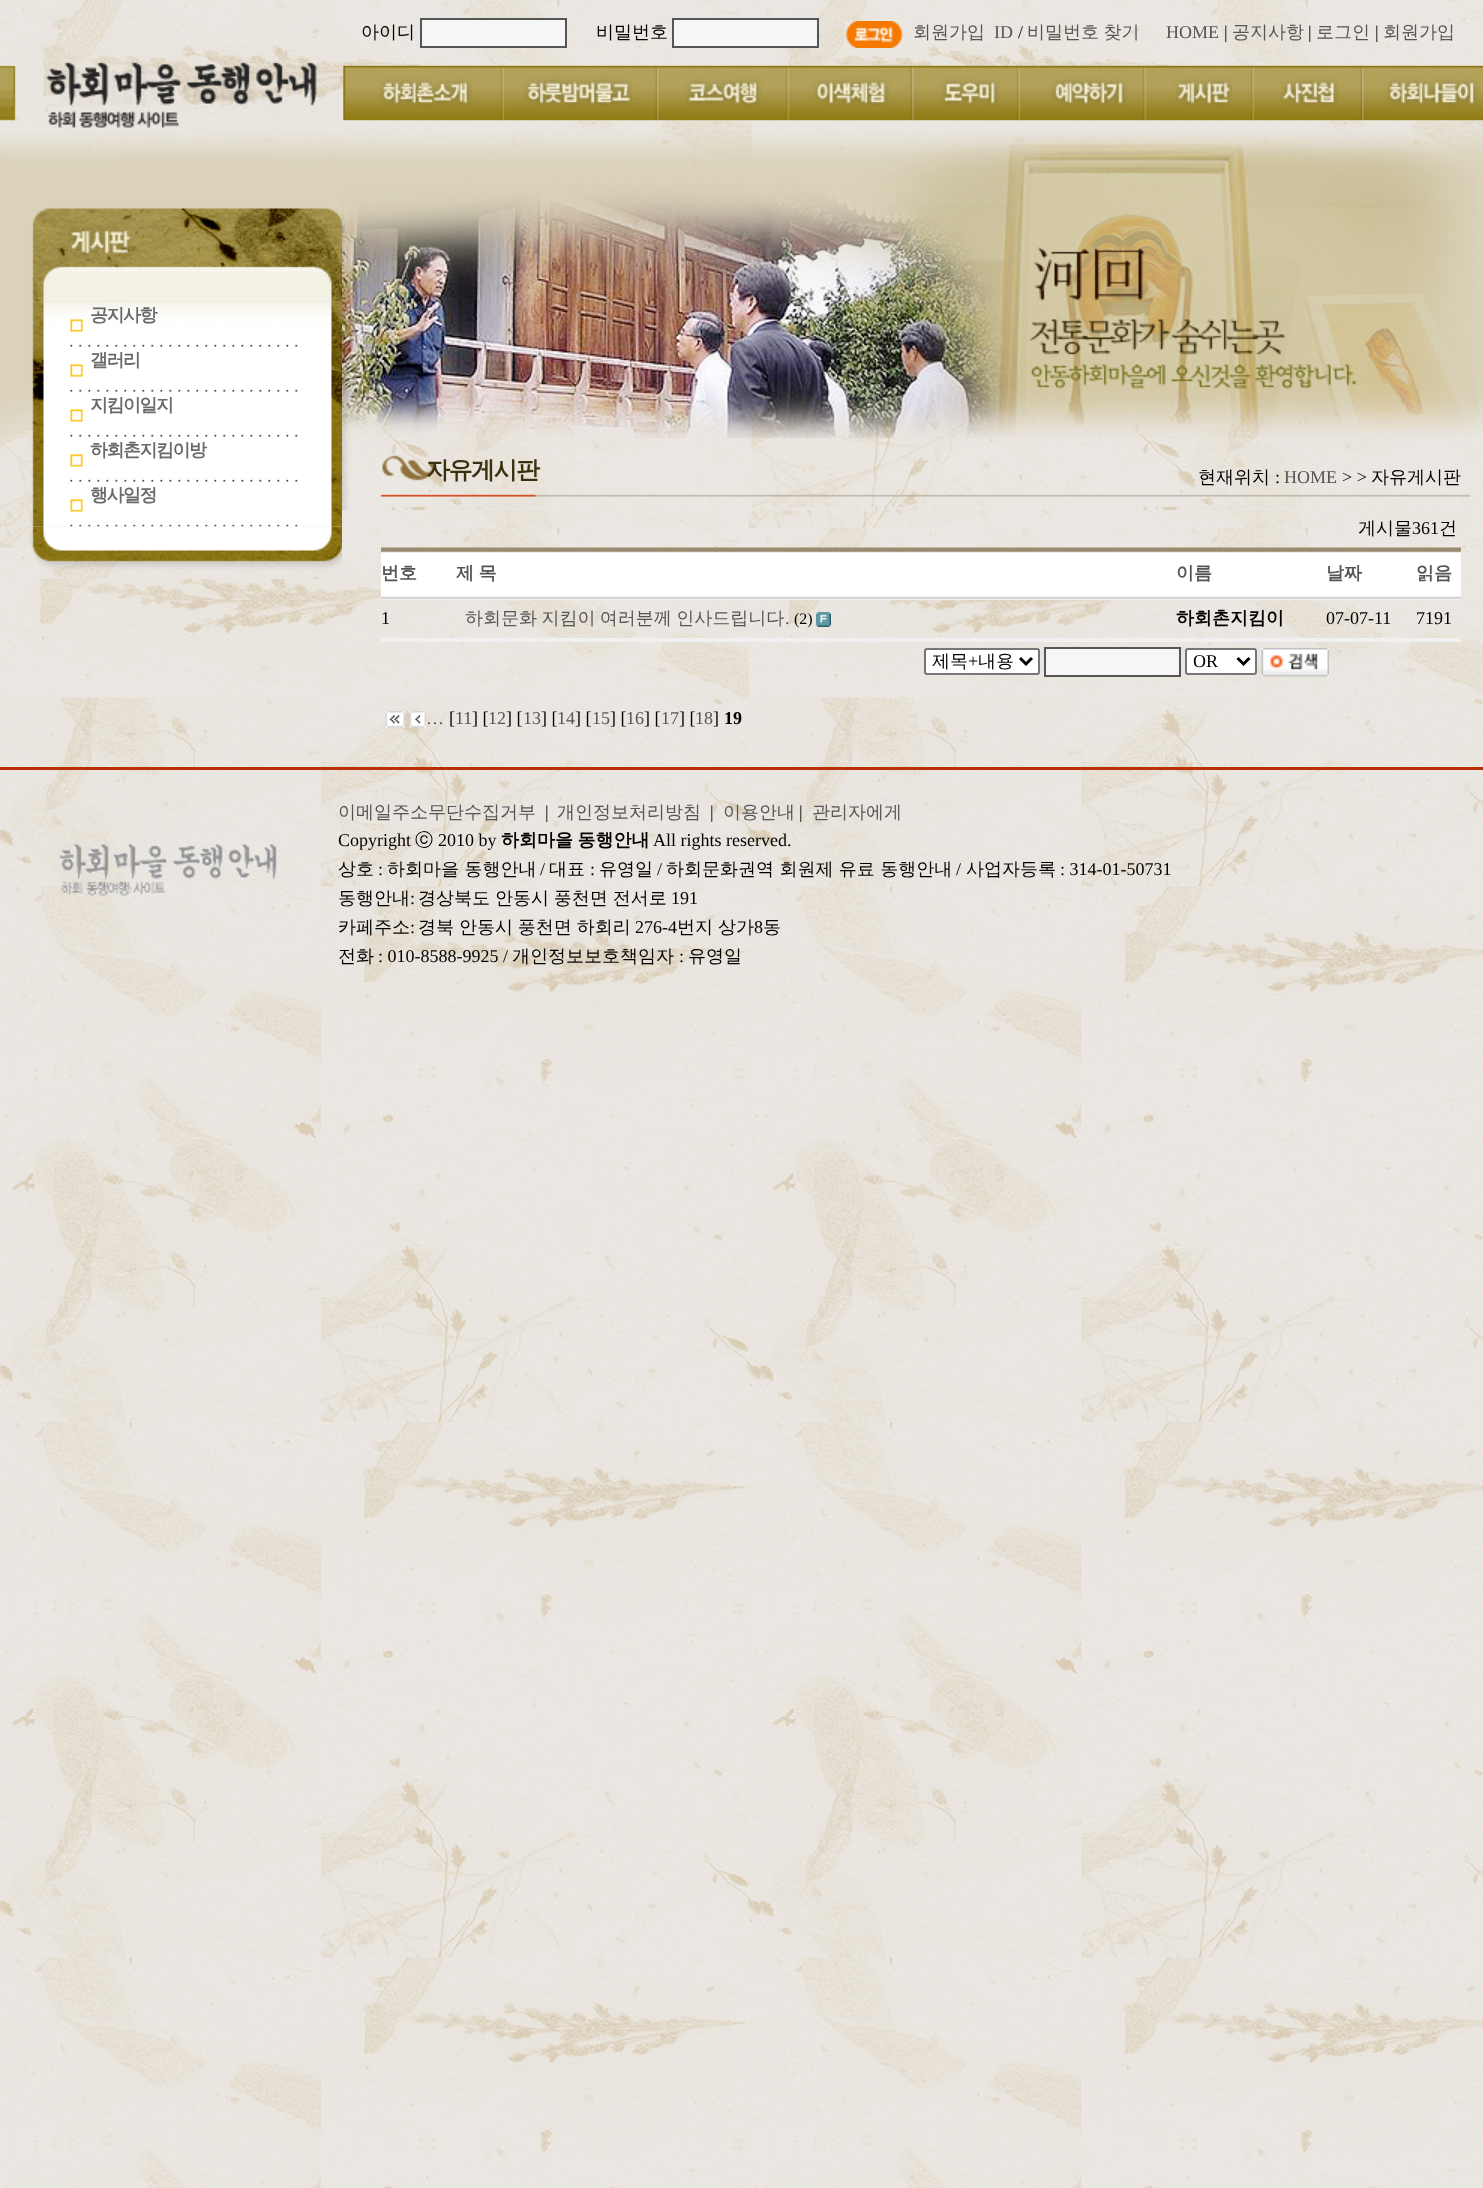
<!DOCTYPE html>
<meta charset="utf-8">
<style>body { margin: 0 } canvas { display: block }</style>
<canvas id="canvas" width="1483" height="2188"></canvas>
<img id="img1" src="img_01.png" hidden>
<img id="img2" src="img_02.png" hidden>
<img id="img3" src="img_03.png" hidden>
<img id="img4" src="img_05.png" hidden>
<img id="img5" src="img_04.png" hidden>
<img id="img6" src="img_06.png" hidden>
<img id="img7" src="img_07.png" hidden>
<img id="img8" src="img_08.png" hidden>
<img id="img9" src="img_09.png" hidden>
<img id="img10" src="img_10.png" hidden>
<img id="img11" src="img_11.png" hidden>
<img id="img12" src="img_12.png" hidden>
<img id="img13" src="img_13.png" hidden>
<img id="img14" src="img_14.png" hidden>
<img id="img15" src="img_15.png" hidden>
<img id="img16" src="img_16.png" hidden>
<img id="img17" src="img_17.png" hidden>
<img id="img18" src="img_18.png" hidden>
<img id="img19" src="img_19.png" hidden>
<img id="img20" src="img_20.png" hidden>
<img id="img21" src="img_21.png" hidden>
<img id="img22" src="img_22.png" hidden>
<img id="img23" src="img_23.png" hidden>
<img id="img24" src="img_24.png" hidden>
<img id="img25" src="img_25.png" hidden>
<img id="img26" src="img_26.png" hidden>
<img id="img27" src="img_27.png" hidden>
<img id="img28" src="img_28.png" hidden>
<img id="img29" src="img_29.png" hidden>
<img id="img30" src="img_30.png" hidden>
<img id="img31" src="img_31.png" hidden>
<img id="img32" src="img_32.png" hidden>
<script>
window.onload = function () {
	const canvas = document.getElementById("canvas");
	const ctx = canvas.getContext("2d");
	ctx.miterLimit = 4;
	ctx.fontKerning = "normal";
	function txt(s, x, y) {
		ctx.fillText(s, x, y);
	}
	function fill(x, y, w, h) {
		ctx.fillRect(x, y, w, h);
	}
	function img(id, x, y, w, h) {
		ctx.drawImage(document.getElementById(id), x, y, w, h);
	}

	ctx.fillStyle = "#FFFFFF";
	fill(0, 0, 1483, 2188);
	img("img1", 0, 697, 1483, 1491);
	img("img2", 0, 0, 1483, 698);
	img("img3", 0, 0, 342, 132);
	img("img4", 0, 301, 342, 226);
	img("img5", 0, 132, 342, 170);
	img("img6", 70, 319, 228, 28);
	img("img7", 70, 364, 228, 28);
	img("img7", 70, 409, 228, 28);
	img("img7", 70, 454, 228, 28);
	img("img8", 70, 499, 228, 28);
	img("img9", 0, 526, 342, 53);
	ctx.fillStyle = "#F6F6F6";
	ctx.beginPath();
	ctx.rect(421, 19, 145, 28);
	ctx.fill();
	ctx.strokeStyle = "#555555";
	ctx.lineWidth = 2;
	ctx.stroke();
	ctx.beginPath();
	ctx.rect(673, 19, 145, 28);
	ctx.fill();
	ctx.stroke();
	img("img10", 844, 21, 59, 27);
	img("img11", 342, 66, 1141, 117);
	img("img12", 343, 66, 160, 54);
	img("img13", 502, 67, 155, 53);
	img("img14", 657, 67, 131, 53);
	img("img15", 787, 67, 125, 53);
	img("img16", 912, 67, 107, 53);
	img("img17", 1018, 67, 127, 53);
	img("img18", 1144, 67, 109, 53);
	img("img19", 1252, 67, 110, 53);
	img("img20", 1362, 67, 121, 53);
	img("img21", 342, 183, 1140, 267);
	img("img22", 342, 450, 1141, 60);
	img("img23", 381, 547, 75, 53);
	img("img24", 456, 547, 720, 53);
	img("img25", 1176, 547, 150, 53);
	img("img26", 1326, 547, 90, 53);
	img("img27", 1416, 547, 45, 53);
	img("img28", 816, 612, 15, 15);
	ctx.fillStyle = "#F2F2F2";
	fill(381, 638, 1080, 1);
	ctx.fillStyle = "#F0F0F0";
	fill(381, 639, 1080, 3);
	ctx.fillStyle = "#FFFFFF";
	ctx.beginPath();
	ctx.roundRect(925, 649, 114, 25, 2);
	ctx.fill();
	ctx.strokeStyle = "#767676";
	ctx.stroke();
	ctx.beginPath();
	ctx.moveTo(1020, 658);
	ctx.lineTo(1026, 664);
	ctx.lineTo(1032, 658);
	ctx.strokeStyle = "#000000";
	ctx.lineWidth = 3;
	ctx.stroke();
	ctx.fillStyle = "#F6F6F6";
	ctx.beginPath();
	ctx.rect(1045, 648, 135, 28);
	ctx.fill();
	ctx.strokeStyle = "#555555";
	ctx.lineWidth = 2;
	ctx.stroke();
	ctx.fillStyle = "#FFFFFF";
	ctx.beginPath();
	ctx.roundRect(1186, 649, 70, 25, 2);
	ctx.fill();
	ctx.strokeStyle = "#767676";
	ctx.stroke();
	ctx.beginPath();
	ctx.moveTo(1237.5, 658);
	ctx.lineTo(1243.5, 664);
	ctx.lineTo(1249.5, 658);
	ctx.strokeStyle = "#000000";
	ctx.lineWidth = 3;
	ctx.stroke();
	img("img29", 1261, 648, 68, 29);
	img("img30", 385, 711, 20, 17);
	img("img31", 409, 711, 17, 17);
	ctx.fillStyle = "#BB3000";
	fill(0, 767, 1483, 3);
	img("img32", 58, 844, 219, 52);
	ctx.letterSpacing = "-1.5px";
	ctx.font = "bold 18px WenQuanYi Zen Hei";
	ctx.fillStyle = "#6A6A6A";
	txt("공지사항", 90, 321);
	txt("갤러리", 90, 366);
	txt("지킴이일지", 90, 411);
	txt("하회촌지킴이방", 90, 456);
	txt("행사일정", 90, 501);
	ctx.letterSpacing = "0px";
	ctx.font = "500 18px WenQuanYi Zen Hei";
	ctx.fillStyle = "#000000";
	txt("아이디", 361, 38);
	txt("비밀번호", 596, 38);
	ctx.fillStyle = "#555555";
	txt("회원가입", 913, 38);
	ctx.font = "18px Liberation Serif";
	txt("ID", 994, 38);
	ctx.fillStyle = "#000000";
	txt("/", 1018, 38);
	ctx.wordSpacing = "-1px";
	ctx.font = "500 18px WenQuanYi Zen Hei";
	ctx.fillStyle = "#555555";
	txt("비밀번호 찾기", 1027, 38);
	ctx.wordSpacing = "0px";
	ctx.font = "18px Liberation Serif";
	txt("HOME", 1166, 38);
	ctx.fillStyle = "#000000";
	txt("|", 1224, 38);
	ctx.font = "500 18px WenQuanYi Zen Hei";
	ctx.fillStyle = "#555555";
	txt("공지사항", 1232, 38);
	ctx.font = "18px Liberation Serif";
	ctx.fillStyle = "#000000";
	txt("|", 1308, 38);
	ctx.font = "500 18px WenQuanYi Zen Hei";
	ctx.fillStyle = "#555555";
	txt("로그인", 1316, 38);
	ctx.font = "18px Liberation Serif";
	ctx.fillStyle = "#000000";
	txt("|", 1375, 38);
	ctx.font = "500 18px WenQuanYi Zen Hei";
	ctx.fillStyle = "#555555";
	txt("회원가입", 1383, 38);
	ctx.letterSpacing = "-1.5px";
	ctx.font = "bold 24px WenQuanYi Zen Hei";
	ctx.fillStyle = "#38310F";
	txt("자유게시판", 426, 478);
	ctx.letterSpacing = "0px";
	ctx.font = "500 18px WenQuanYi Zen Hei";
	ctx.fillStyle = "#000000";
	txt("현재위치", 1198, 483);
	ctx.font = "18px Liberation Serif";
	txt(":", 1275, 483);
	ctx.fillStyle = "#555555";
	txt("HOME", 1284, 483);
	ctx.fillStyle = "#000000";
	txt("> >", 1342, 483);
	ctx.font = "500 18px WenQuanYi Zen Hei";
	txt("자유게시판", 1371, 483);
	txt("게시물", 1358, 534);
	ctx.font = "18px Liberation Serif";
	txt("361", 1412, 534);
	ctx.font = "500 18px WenQuanYi Zen Hei";
	txt("건", 1439, 534);
	ctx.font = "bold 18px WenQuanYi Zen Hei";
	ctx.fillStyle = "#555555";
	txt("번호", 381, 579);
	ctx.wordSpacing = "-1px";
	txt("제 목", 456, 579);
	ctx.wordSpacing = "0px";
	txt("이름", 1176, 579);
	txt("날짜", 1326, 579);
	txt("읽음", 1416, 579);
	ctx.font = "18px Liberation Serif";
	ctx.fillStyle = "#000000";
	txt("1", 381, 624);
	ctx.wordSpacing = "-1px";
	ctx.font = "500 18px WenQuanYi Zen Hei";
	ctx.fillStyle = "#555555";
	txt("하회문화 지킴이 여러분께 인사드립니다", 465, 624);
	ctx.wordSpacing = "0px";
	ctx.font = "18px Liberation Serif";
	txt(".", 785, 624);
	ctx.font = "16px Liberation Serif";
	ctx.fillStyle = "#000000";
	txt("(2)", 794, 624);
	ctx.font = "bold 18px WenQuanYi Zen Hei";
	txt("하회촌지킴이", 1176, 624);
	ctx.font = "18px Liberation Serif";
	txt("07-07-11", 1326, 624);
	txt("7191", 1416, 624);
	ctx.font = "500 18px WenQuanYi Zen Hei";
	txt("제목", 932, 667);
	ctx.font = "18px Liberation Serif";
	txt("+", 968, 667);
	ctx.font = "500 18px WenQuanYi Zen Hei";
	txt("내용", 978, 667);
	ctx.font = "18px Liberation Serif";
	txt("OR", 1193, 667);
	ctx.fillStyle = "#555555";
	txt("…", 426, 724);
	ctx.fillStyle = "#000000";
	txt("[", 449, 724);
	ctx.fillStyle = "#555555";
	txt("11", 455, 724);
	ctx.fillStyle = "#000000";
	txt("] [", 472, 724);
	ctx.fillStyle = "#555555";
	txt("12", 488, 724);
	ctx.fillStyle = "#000000";
	txt("] [", 506, 724);
	ctx.fillStyle = "#555555";
	txt("13", 523, 724);
	ctx.fillStyle = "#000000";
	txt("] [", 541, 724);
	ctx.fillStyle = "#555555";
	txt("14", 557, 724);
	ctx.fillStyle = "#000000";
	txt("] [", 575, 724);
	ctx.fillStyle = "#555555";
	txt("15", 592, 724);
	ctx.fillStyle = "#000000";
	txt("] [", 610, 724);
	ctx.fillStyle = "#555555";
	txt("16", 626, 724);
	ctx.fillStyle = "#000000";
	txt("] [", 644, 724);
	ctx.fillStyle = "#555555";
	txt("17", 661, 724);
	ctx.fillStyle = "#000000";
	txt("] [", 679, 724);
	ctx.fillStyle = "#555555";
	txt("18", 695, 724);
	ctx.fillStyle = "#000000";
	txt("]", 713, 724);
	ctx.font = "bold 18px Liberation Serif";
	txt("19", 724, 724);
	ctx.font = "500 18px WenQuanYi Zen Hei";
	ctx.fillStyle = "#555555";
	txt("이메일주소무단수집거부", 338, 818);
	ctx.font = "18px Liberation Serif";
	ctx.fillStyle = "#000000";
	txt("|", 545, 818);
	ctx.font = "500 18px WenQuanYi Zen Hei";
	ctx.fillStyle = "#555555";
	txt("개인정보처리방침", 557, 818);
	ctx.font = "18px Liberation Serif";
	ctx.fillStyle = "#000000";
	txt("|", 710, 818);
	ctx.font = "500 18px WenQuanYi Zen Hei";
	ctx.fillStyle = "#555555";
	txt("이용안내", 723, 818);
	ctx.font = "18px Liberation Serif";
	ctx.fillStyle = "#000000";
	txt("|", 799, 818);
	ctx.font = "500 18px WenQuanYi Zen Hei";
	ctx.fillStyle = "#555555";
	txt("관리자에게", 812, 818);
	ctx.font = "18px Liberation Serif";
	ctx.fillStyle = "#000000";
	txt("Copyright", 338, 846);
	ctx.font = "500 18px WenQuanYi Zen Hei";
	txt("ⓒ", 415, 846);
	ctx.font = "18px Liberation Serif";
	txt("2010 by", 438, 846);
	ctx.wordSpacing = "-1px";
	ctx.font = "bold 18px WenQuanYi Zen Hei";
	txt("하회마을 동행안내", 501, 846);
	ctx.wordSpacing = "0px";
	ctx.font = "18px Liberation Serif";
	txt("All rights reserved.", 653, 846);
	ctx.font = "500 18px WenQuanYi Zen Hei";
	txt("상호", 338, 875);
	ctx.font = "18px Liberation Serif";
	txt(":", 378, 875);
	ctx.font = "500 18px WenQuanYi Zen Hei";
	txt("하회마을 동행안내", 387, 875);
	ctx.font = "18px Liberation Serif";
	txt("/", 540, 875);
	ctx.font = "500 18px WenQuanYi Zen Hei";
	txt("대표", 549, 875);
	ctx.font = "18px Liberation Serif";
	txt(":", 590, 875);
	ctx.font = "500 18px WenQuanYi Zen Hei";
	txt("유영일", 599, 875);
	ctx.font = "18px Liberation Serif";
	txt("/", 657, 875);
	ctx.font = "500 18px WenQuanYi Zen Hei";
	txt("하회문화권역 회원제 유료 동행안내", 666, 875);
	ctx.font = "18px Liberation Serif";
	txt("/", 956, 875);
	ctx.font = "500 18px WenQuanYi Zen Hei";
	txt("사업자등록", 966, 875);
	ctx.font = "18px Liberation Serif";
	txt(": 314-01-50731", 1060, 875);
	ctx.font = "500 18px WenQuanYi Zen Hei";
	txt("동행안내", 338, 904);
	ctx.font = "18px Liberation Serif";
	txt(":", 410, 904);
	ctx.wordSpacing = "-0.5px";
	ctx.font = "500 18px WenQuanYi Zen Hei";
	txt("경상북도 안동시 풍천면 전서로", 418, 904);
	ctx.wordSpacing = "0px";
	ctx.font = "18px Liberation Serif";
	txt("191", 671, 904);
	ctx.font = "500 18px WenQuanYi Zen Hei";
	txt("카페주소", 338, 933);
	ctx.font = "18px Liberation Serif";
	txt(":", 410, 933);
	ctx.wordSpacing = "-0.5px";
	ctx.font = "500 18px WenQuanYi Zen Hei";
	txt("경북 안동시 풍천면 하회리", 418, 933);
	ctx.wordSpacing = "0px";
	ctx.font = "18px Liberation Serif";
	txt("276-4", 635, 933);
	ctx.wordSpacing = "-0.5px";
	ctx.font = "500 18px WenQuanYi Zen Hei";
	txt("번지 상가", 677, 933);
	ctx.wordSpacing = "0px";
	ctx.font = "18px Liberation Serif";
	txt("8", 754, 933);
	ctx.font = "500 18px WenQuanYi Zen Hei";
	txt("동", 763, 933);
	txt("전화", 338, 962);
	ctx.font = "18px Liberation Serif";
	txt(": 010-8588-9925 /", 378, 962);
	ctx.font = "500 18px WenQuanYi Zen Hei";
	txt("개인정보보호책임자", 512, 962);
	ctx.font = "18px Liberation Serif";
	txt(":", 679, 962);
	ctx.font = "500 18px WenQuanYi Zen Hei";
	txt("유영일", 688, 962);
};
</script>
